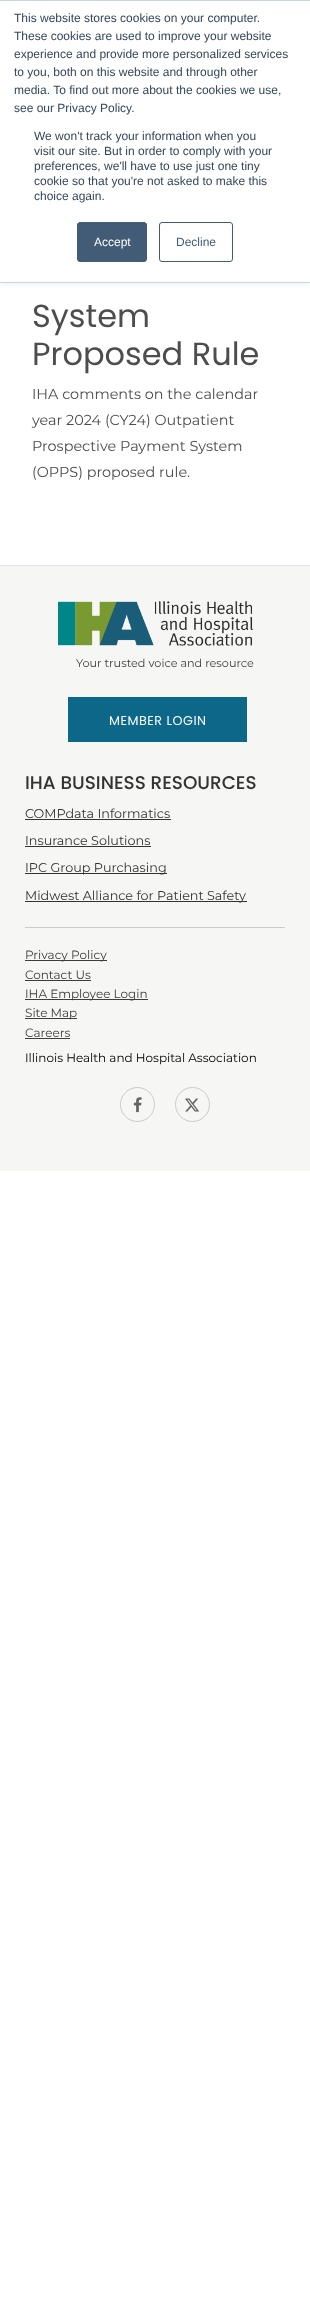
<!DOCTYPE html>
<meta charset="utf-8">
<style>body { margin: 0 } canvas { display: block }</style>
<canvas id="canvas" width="310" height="2297"></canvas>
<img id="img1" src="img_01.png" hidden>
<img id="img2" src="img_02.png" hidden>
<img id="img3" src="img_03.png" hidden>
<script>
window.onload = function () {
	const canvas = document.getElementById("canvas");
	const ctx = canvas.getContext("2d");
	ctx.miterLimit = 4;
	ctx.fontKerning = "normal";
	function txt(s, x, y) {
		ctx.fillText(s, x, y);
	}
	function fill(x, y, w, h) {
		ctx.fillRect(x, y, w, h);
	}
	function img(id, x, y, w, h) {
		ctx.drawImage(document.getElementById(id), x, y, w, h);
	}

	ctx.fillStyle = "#FFFFFF";
	fill(0, 0, 310, 2297);
	ctx.fillStyle = "#EAF0F6";
	ctx.filter = "blur(2.5px)";
	ctx.beginPath();
	ctx.rect(0, 1, 310, 283);
	ctx.fill();
	ctx.filter = "none";
	ctx.fillStyle = "#FFFFFF";
	fill(0, 1, 310, 281);
	ctx.fillStyle = "#CBD6E2";
	fill(0, 0, 310, 1);
	fill(0, 282, 310, 1);
	ctx.fillStyle = "#425B76";
	ctx.beginPath();
	ctx.roundRect(77.5, 222.5, 69, 39, 2.5);
	ctx.fill();
	ctx.strokeStyle = "#425B76";
	ctx.stroke();
	ctx.beginPath();
	ctx.roundRect(159.5, 222.5, 73, 39, 2.5);
	ctx.stroke();
	ctx.fillStyle = "#F6F6F4";
	fill(0, 566, 310, 605);
	ctx.fillStyle = "#DEE2E6";
	fill(0, 565, 310, 1);
	img("img1", 58, 601, 195, 45);
	ctx.fillStyle = "#0C6788";
	fill(68, 697, 179, 45);
	ctx.fillStyle = "#333333";
	fill(25, 819, 146, 1);
	fill(25, 846, 126, 1);
	fill(25, 873, 142, 1);
	fill(25, 901, 222, 1);
	ctx.fillStyle = "#CCCCCC";
	fill(25, 927, 260, 1);
	ctx.fillStyle = "#3D3D3D";
	fill(25, 960, 82, 1);
	fill(25, 980, 66, 1);
	fill(25, 999, 123, 1);
	fill(25, 1018, 52, 1);
	fill(25, 1038, 45, 1);
	ctx.beginPath();
	ctx.arc(137.5, 1104.5, 17, 0, Math.PI * 2);
	ctx.strokeStyle = "#CCCCCC";
	ctx.stroke();
	img("img2", 133, 1097, 9, 16);
	ctx.beginPath();
	ctx.arc(192.5, 1104.5, 17, 0, Math.PI * 2);
	ctx.stroke();
	img("img3", 185, 1098, 15, 14);
	ctx.font = "12px Liberation Sans";
	ctx.fillStyle = "#33475B";
	txt("This website stores cookies on your computer.", 14, 22);
	txt("These cookies are used to improve your website", 14, 40);
	txt("experience and provide more personalized services", 14, 58);
	txt("to you, both on this website and through other", 14, 76);
	txt("media. To find out more about the cookies we use,", 14, 94);
	txt("see our Privacy Policy.", 14, 112);
	txt("We won't track your information when you", 34, 140);
	txt("visit our site. But in order to comply with your", 34, 155);
	txt("preferences, we'll have to use just one tiny", 34, 170);
	txt("cookie so that you're not asked to make this", 34, 185);
	txt("choice again.", 34, 200);
	ctx.fillStyle = "#FFFFFF";
	txt("Accept", 94, 246);
	ctx.fillStyle = "#425B76";
	txt("Decline", 176, 246);
	ctx.font = "32px Poppins";
	ctx.fillStyle = "#4D4D4D";
	txt("System", 32, 327);
	txt("Proposed Rule", 32, 365);
	ctx.font = "14.4px Montserrat";
	txt("IHA comments on the calendar", 32, 399);
	txt("year 2024 (CY24) Outpatient", 32, 425);
	txt("Prospective Payment System", 32, 451);
	txt("(OPPS) proposed rule.", 32, 477);
	ctx.font = "11.25px Montserrat";
	ctx.fillStyle = "#3D3D3D";
	txt("Your trusted voice and resource", 76, 667);
	ctx.letterSpacing = "0.5px";
	ctx.font = "12.75px Poppins";
	ctx.fillStyle = "#FFFFFF";
	txt("MEMBER LOGIN", 109, 725);
	ctx.letterSpacing = "0px";
	ctx.font = "500 18.4px Poppins";
	ctx.fillStyle = "#333333";
	txt("IHA BUSINESS RESOURCES", 25, 789);
	ctx.font = "12.75px Montserrat";
	txt("COMPdata Informatics", 25, 818);
	txt("Insurance Solutions", 25, 845);
	txt("IPC Group Purchasing", 25, 872);
	txt("Midwest Alliance for Patient Safety", 25, 900);
	ctx.font = "12px Montserrat";
	ctx.fillStyle = "#3D3D3D";
	txt("Privacy Policy", 25, 959);
	txt("Contact Us", 25, 979);
	txt("IHA Employee Login", 25, 998);
	txt("Site Map", 25, 1017);
	txt("Careers", 25, 1037);
	ctx.fillStyle = "#000000";
	txt("Illinois Health and Hospital Association", 25, 1062);
};
</script>
